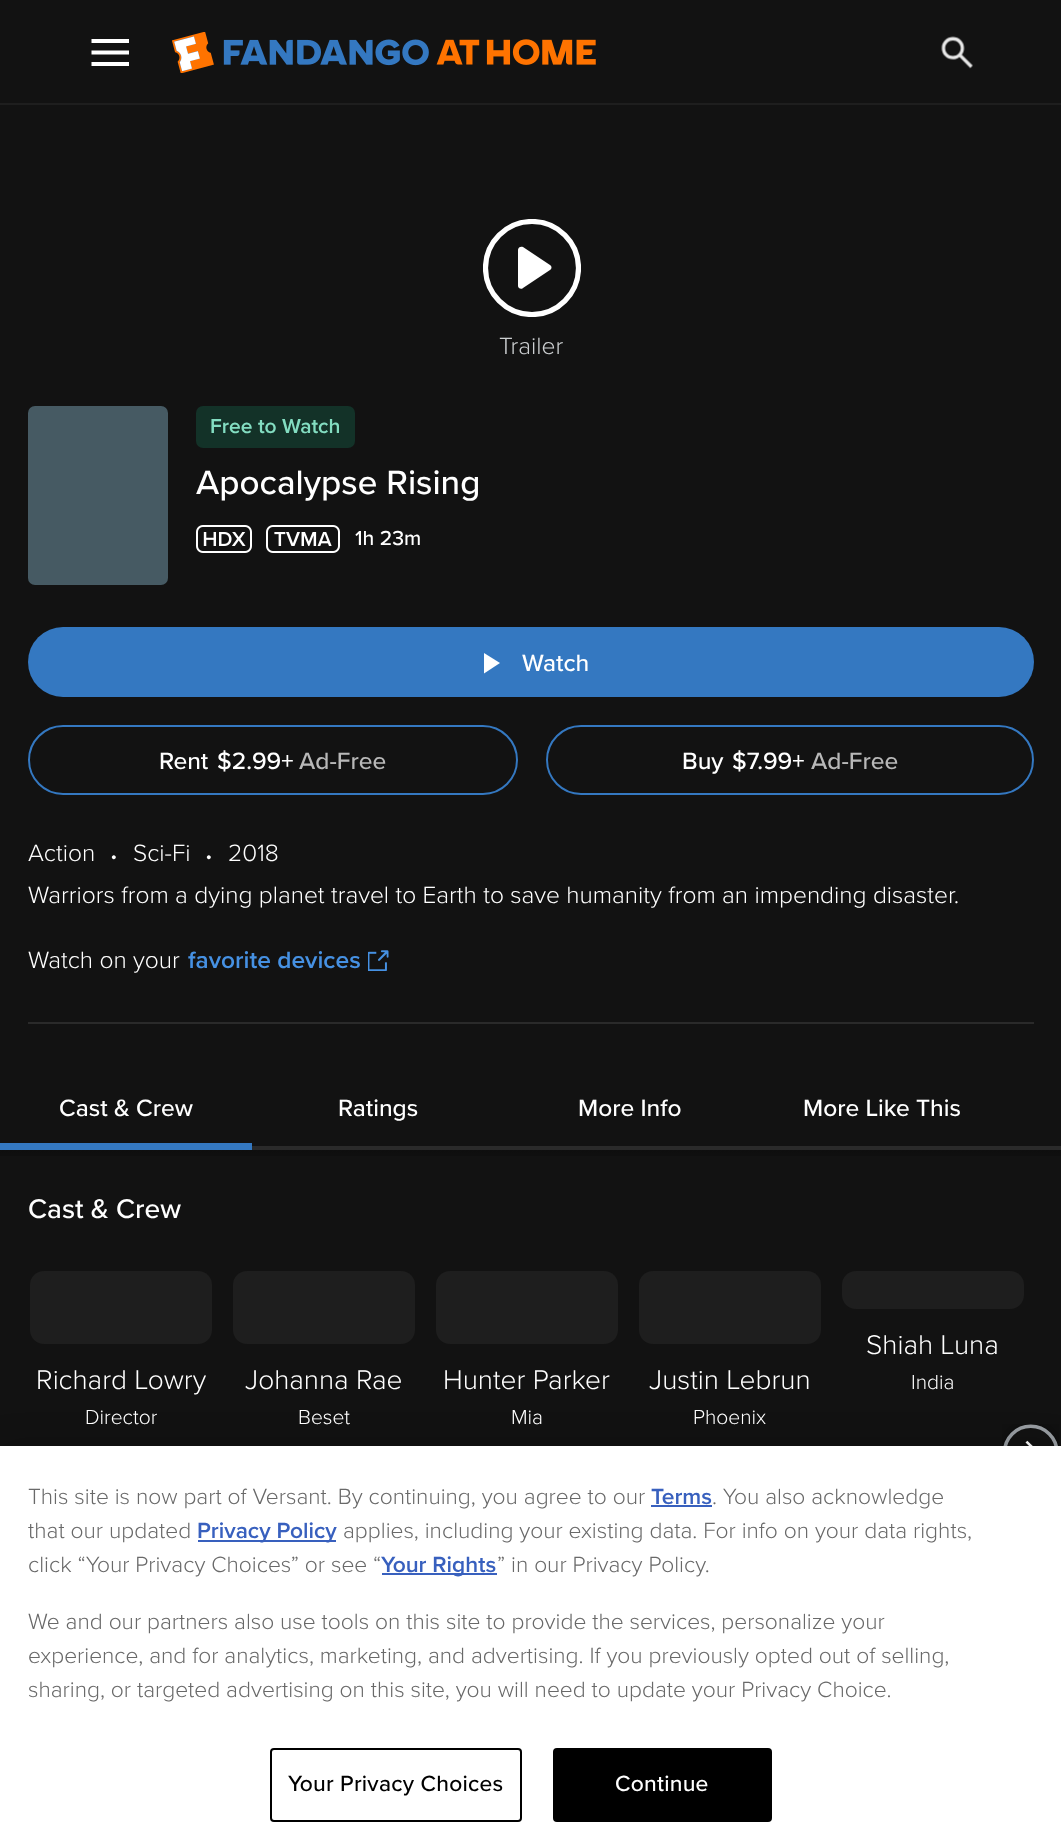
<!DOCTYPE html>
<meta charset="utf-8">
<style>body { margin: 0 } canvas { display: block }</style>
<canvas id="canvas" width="1061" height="1839"></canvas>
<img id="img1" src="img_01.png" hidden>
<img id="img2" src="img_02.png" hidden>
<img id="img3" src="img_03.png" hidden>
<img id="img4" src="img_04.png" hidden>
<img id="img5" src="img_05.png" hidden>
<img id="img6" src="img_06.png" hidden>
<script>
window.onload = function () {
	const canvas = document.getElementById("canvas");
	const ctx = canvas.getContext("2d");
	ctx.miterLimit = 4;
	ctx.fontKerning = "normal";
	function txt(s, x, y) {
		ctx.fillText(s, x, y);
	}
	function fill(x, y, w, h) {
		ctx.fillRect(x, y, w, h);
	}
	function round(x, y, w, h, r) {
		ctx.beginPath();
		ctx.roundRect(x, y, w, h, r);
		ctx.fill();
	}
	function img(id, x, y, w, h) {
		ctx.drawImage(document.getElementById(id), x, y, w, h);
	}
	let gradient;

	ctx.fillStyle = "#121212";
	fill(0, 0, 1061, 1839);
	ctx.fillStyle = "#1E1E1E";
	fill(0, 103, 1061, 2);
	ctx.fillStyle = "#FFFFFF";
	ctx.beginPath();
	ctx.moveTo(129, 43);
	ctx.lineTo(91.5, 43);
	ctx.lineTo(91.5, 39);
	ctx.lineTo(129, 39);
	ctx.closePath();
	ctx.moveTo(129, 54.5);
	ctx.lineTo(91.5, 54.5);
	ctx.lineTo(91.5, 50.5);
	ctx.lineTo(129, 50.5);
	ctx.closePath();
	ctx.moveTo(129, 66);
	ctx.lineTo(91.5, 66);
	ctx.lineTo(91.5, 62);
	ctx.lineTo(129, 62);
	ctx.closePath();
	ctx.fill("evenodd");
	img("img1", 172, 32, 424, 41);
	img("img2", 941, 36, 32, 33);
	ctx.save();
	ctx.beginPath();
	ctx.rect(483, 219, 98, 98);
	ctx.clip();
	ctx.beginPath();
	ctx.arc(532, 268, 46.5, 0, Math.PI * 2);
	ctx.strokeStyle = "#FFFFFF";
	ctx.lineWidth = 5.2;
	ctx.stroke();
	ctx.restore();
	ctx.beginPath();
	ctx.moveTo(550, 265);
	ctx.lineTo(523, 247);
	ctx.bezierCurveTo(521, 246, 518, 247, 518, 250);
	ctx.lineTo(518, 286);
	ctx.bezierCurveTo(518, 288, 521, 290, 523, 288);
	ctx.lineTo(550, 270);
	ctx.bezierCurveTo(552, 269, 552, 266, 550, 265);
	ctx.closePath();
	ctx.fill("evenodd");
	ctx.fillStyle = "#465A63";
	round(28, 406, 140, 179, 7);
	ctx.fillStyle = "#133228";
	round(196, 406, 159, 42, 7);
	img("img3", 196, 525, 56, 28);
	img("img4", 266, 525, 74, 28);
	ctx.fillStyle = "#3478C1";
	round(28, 627, 1006, 70, 35);
	ctx.fillStyle = "#FFFFFF";
	ctx.beginPath();
	ctx.moveTo(484, 673.5);
	ctx.lineTo(484, 653);
	ctx.lineTo(500, 663);
	ctx.closePath();
	ctx.fill();
	ctx.beginPath();
	ctx.roundRect(29, 726, 488, 68, 34);
	ctx.strokeStyle = "#3478C1";
	ctx.lineWidth = 2;
	ctx.stroke();
	ctx.beginPath();
	ctx.roundRect(547, 726, 486, 68, 34);
	ctx.stroke();
	ctx.fillStyle = "#2A2A2A";
	fill(28, 1022, 1006, 2);
	img("img5", 368, 950, 21, 21);
	ctx.fillStyle = "#3478C1";
	fill(0, 1143, 252, 7);
	ctx.fillStyle = "#2A2A2A";
	fill(252, 1146, 809, 4);
	gradient = ctx.createLinearGradient(531, 1167, 531, 1150);
	gradient.addColorStop(0, "#121212");
	gradient.addColorStop(1, "#0E0E0E");
	ctx.fillStyle = gradient;
	fill(0, 1150, 1061, 6);
	ctx.fillStyle = "#1E1E1E";
	round(842, 1271, 182, 38, 14);
	round(30, 1271, 182, 73, 14);
	round(233, 1271, 182, 73, 14);
	round(436, 1271, 182, 73, 14);
	round(639, 1271, 182, 73, 14);
	img("img6", 1002, 1424, 57, 22);
	ctx.fillStyle = "rgba(0, 0, 0, 0.2)";
	ctx.filter = "blur(16px)";
	ctx.beginPath();
	ctx.rect(0, 1446, 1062, 393);
	ctx.fill();
	ctx.filter = "none";
	ctx.fillStyle = "#FFFFFF";
	fill(0, 1446, 1061, 393);
	ctx.fillStyle = "#3860BE";
	fill(651, 1505, 61, 2);
	fill(198, 1540, 138, 2);
	fill(382, 1573, 115, 2);
	ctx.beginPath();
	ctx.roundRect(271, 1749, 250, 72, 3);
	ctx.strokeStyle = "#000000";
	ctx.stroke();
	ctx.fillStyle = "#000000";
	ctx.beginPath();
	ctx.roundRect(554, 1749, 217, 72, 3);
	ctx.fill();
	ctx.stroke();
	ctx.font = "300 24.5px Proxima Nova";
	ctx.fillStyle = "#CCCFD1";
	txt("Trailer", 499, 354);
	ctx.font = "600 21px Proxima Nova";
	ctx.fillStyle = "#83DDC1";
	txt("Free to Watch", 210, 433);
	ctx.font = "500 35px Proxima Nova";
	ctx.fillStyle = "#FFFFFF";
	txt("Apocalypse Rising", 196, 494);
	ctx.font = "500 21px Proxima Nova";
	txt("1h 23m", 355, 545);
	ctx.font = "500 24.5px Proxima Nova";
	txt("Watch", 522, 671);
	txt("Rent", 159, 769);
	txt("$2.99+", 217, 769);
	ctx.fillStyle = "#B8B8B8";
	txt("Ad-Free", 299, 769);
	ctx.fillStyle = "#FFFFFF";
	txt("Buy", 682, 769);
	txt("$7.99+", 732, 769);
	ctx.fillStyle = "#B8B8B8";
	txt("Ad-Free", 811, 769);
	ctx.font = "300 24.5px Proxima Nova";
	ctx.fillStyle = "#FFFFFF";
	txt("Action", 28, 861);
	ctx.font = "300 44px Proxima Nova";
	txt("·", 109, 868);
	ctx.font = "300 24.5px Proxima Nova";
	txt("Sci-Fi", 133, 861);
	ctx.font = "300 44px Proxima Nova";
	txt("·", 204, 868);
	ctx.font = "300 24.5px Proxima Nova";
	txt("2018", 228, 861);
	txt("Warriors from a dying planet travel to Earth to save humanity from an impending disaster.", 28, 903);
	txt("Watch on your", 28, 968);
	ctx.font = "600 24.5px Proxima Nova";
	ctx.fillStyle = "#4691E3";
	txt("favorite devices", 188, 968);
	ctx.font = "500 24.5px Proxima Nova";
	ctx.fillStyle = "#FFFFFF";
	txt("Cast & Crew", 59, 1116);
	txt("Ratings", 338, 1116);
	txt("More Info", 578, 1116);
	txt("More Like This", 803, 1116);
	ctx.font = "500 28px Proxima Nova";
	txt("Cast & Crew", 28, 1218);
	ctx.font = "300 28px Proxima Nova";
	txt("Shiah Luna", 866, 1354);
	ctx.font = "300 21px Proxima Nova";
	txt("India", 911, 1389);
	ctx.font = "300 28px Proxima Nova";
	txt("Richard Lowry", 36, 1389);
	ctx.font = "300 21px Proxima Nova";
	txt("Director", 85, 1424);
	ctx.font = "300 28px Proxima Nova";
	txt("Johanna Rae", 245, 1389);
	ctx.font = "300 21px Proxima Nova";
	txt("Beset", 298, 1424);
	ctx.font = "300 28px Proxima Nova";
	txt("Hunter Parker", 443, 1389);
	ctx.font = "300 21px Proxima Nova";
	txt("Mia", 511, 1424);
	ctx.font = "300 28px Proxima Nova";
	txt("Justin Lebrun", 649, 1389);
	ctx.font = "300 21px Proxima Nova";
	txt("Phoenix", 693, 1424);
	ctx.font = "300 22.75px Proxima Nova";
	ctx.fillStyle = "#696969";
	txt("This site is now part of Versant. By continuing, you agree to our", 28, 1504);
	ctx.font = "600 22.75px Proxima Nova";
	ctx.fillStyle = "#3860BE";
	txt("Terms", 651, 1504);
	ctx.font = "300 22.75px Proxima Nova";
	ctx.fillStyle = "#696969";
	txt(". You also acknowledge", 712, 1504);
	txt("that our updated", 28, 1538);
	ctx.font = "600 22.75px Proxima Nova";
	ctx.fillStyle = "#3860BE";
	txt("Privacy Policy", 197, 1538);
	ctx.font = "300 22.75px Proxima Nova";
	ctx.fillStyle = "#696969";
	txt("applies, including your existing data. For info on your data rights,", 343, 1538);
	txt("click “Your Privacy Choices” or see “", 28, 1572);
	ctx.font = "600 22.75px Proxima Nova";
	ctx.fillStyle = "#3860BE";
	txt("Your Rights", 381, 1572);
	ctx.font = "300 22.75px Proxima Nova";
	ctx.fillStyle = "#696969";
	txt("” in our Privacy Policy.", 497, 1572);
	txt("We and our partners also use tools on this site to provide the services, personalize your", 28, 1629);
	txt("experience, and for analytics, marketing, and advertising. If you previously opted out of selling,", 28, 1663);
	txt("sharing, or targeted advertising on this site, you will need to update your Privacy Choice.", 28, 1697);
	ctx.letterSpacing = "0.25px";
	ctx.font = "500 22.75px Proxima Nova";
	ctx.fillStyle = "#000000";
	txt("Your Privacy Choices", 288, 1791);
	ctx.fillStyle = "#FFFFFF";
	txt("Continue", 615, 1791);
};
</script>
